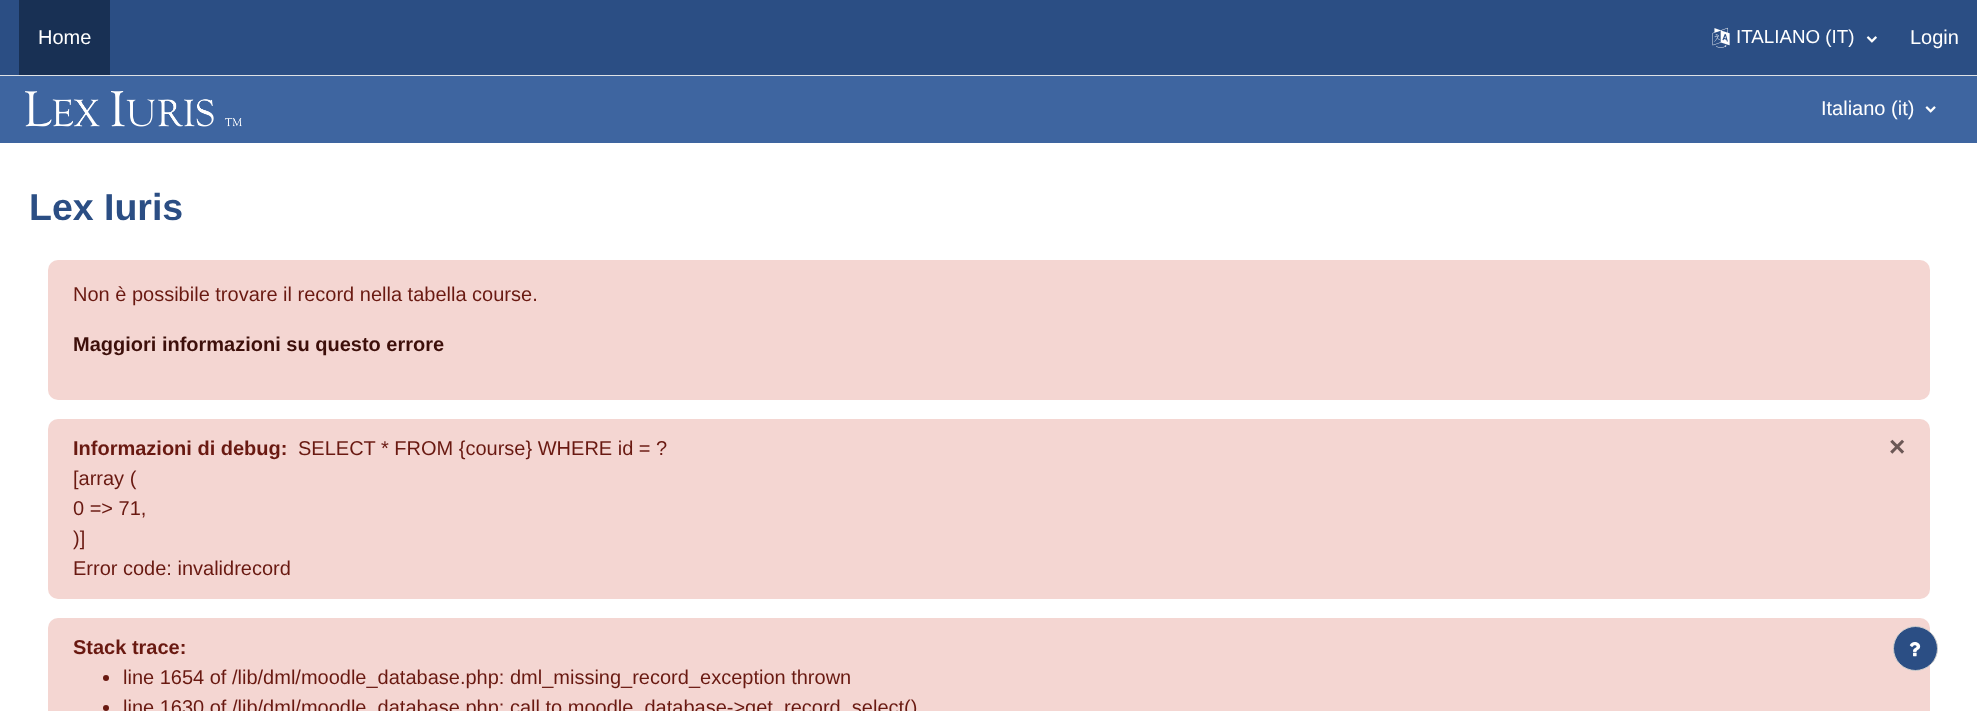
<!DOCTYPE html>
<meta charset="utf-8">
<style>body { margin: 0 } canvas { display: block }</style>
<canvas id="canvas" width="1977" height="711"></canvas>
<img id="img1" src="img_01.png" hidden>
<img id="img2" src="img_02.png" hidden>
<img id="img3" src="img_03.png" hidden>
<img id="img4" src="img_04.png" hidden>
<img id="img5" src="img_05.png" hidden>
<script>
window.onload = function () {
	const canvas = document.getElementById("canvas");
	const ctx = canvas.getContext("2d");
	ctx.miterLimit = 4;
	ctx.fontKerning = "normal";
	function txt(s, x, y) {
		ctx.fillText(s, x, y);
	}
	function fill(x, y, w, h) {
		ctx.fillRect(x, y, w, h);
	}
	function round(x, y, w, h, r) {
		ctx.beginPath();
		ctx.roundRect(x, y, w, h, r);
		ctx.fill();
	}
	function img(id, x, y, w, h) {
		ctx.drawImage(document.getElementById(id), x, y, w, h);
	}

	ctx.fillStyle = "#FFFFFF";
	fill(0, 0, 1977, 711);
	ctx.fillStyle = "#2B4E84";
	fill(0, 0, 1977, 75);
	ctx.fillStyle = "#DEE2E6";
	fill(0, 75, 1977, 1);
	ctx.fillStyle = "#183054";
	fill(19, 0, 91, 75);
	img("img1", 1712, 27, 18, 21);
	img("img2", 1866, 36, 11, 7);
	ctx.fillStyle = "#3E65A0";
	fill(0, 76, 1977, 67);
	img("img3", 25, 91, 217, 36);
	img("img4", 1925, 106, 11, 7);
	ctx.fillStyle = "#F4D6D2";
	round(48, 260, 1882, 140, 10);
	round(48, 419, 1882, 180, 10);
	round(48, 618, 1882, 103, 10);
	ctx.fillStyle = "#691911";
	ctx.beginPath();
	ctx.arc(106, 678, 3, 0, Math.PI * 2);
	ctx.fill();
	ctx.beginPath();
	ctx.arc(106, 708, 3, 0, Math.PI * 2);
	ctx.fill();
	ctx.fillStyle = "#2B4E84";
	ctx.beginPath();
	ctx.arc(1915.5, 648.5, 22, 0, Math.PI * 2);
	ctx.fill();
	ctx.strokeStyle = "#CDCDCD";
	ctx.stroke();
	img("img5", 1909, 642, 12, 15);
	ctx.font = "20px Liberation Sans";
	ctx.fillStyle = "#FFFFFF";
	txt("Home", 38, 44);
	ctx.font = "18.75px Liberation Sans";
	txt("ITALIANO (IT)", 1736, 43);
	ctx.font = "20px Liberation Sans";
	txt("Login", 1910, 44);
	txt("Italiano (it)", 1821, 115);
	ctx.font = "bold 37.5px Liberation Sans";
	ctx.fillStyle = "#2B4E84";
	txt("Lex Iuris", 29, 220);
	ctx.font = "20px Liberation Sans";
	ctx.fillStyle = "#691911";
	txt("Non è possibile trovare il record nella tabella course.", 73, 301);
	ctx.font = "bold 20px Liberation Sans";
	ctx.fillStyle = "#3D0F0A";
	txt("Maggiori informazioni su questo errore", 73, 351);
	ctx.fillStyle = "#691911";
	txt("Informazioni di debug:", 73, 455);
	ctx.font = "20px Liberation Sans";
	txt("SELECT * FROM {course} WHERE id = ?", 298, 455);
	ctx.font = "bold 28px Liberation Sans";
	ctx.fillStyle = "#6C5856";
	txt("×", 1889, 456);
	ctx.font = "20px Liberation Sans";
	ctx.fillStyle = "#691911";
	txt("[array (", 73, 485);
	txt("0 => 71,", 73, 515);
	txt(")]", 73, 545);
	txt("Error code: invalidrecord", 73, 575);
	ctx.font = "bold 20px Liberation Sans";
	txt("Stack trace:", 73, 654);
	ctx.font = "20px Liberation Sans";
	txt("line 1654 of /lib/dml/moodle_database.php: dml_missing_record_exception thrown", 123, 684);
	txt("line 1630 of /lib/dml/moodle_database.php: call to moodle_database->get_record_select()", 123, 714);
};
</script>
